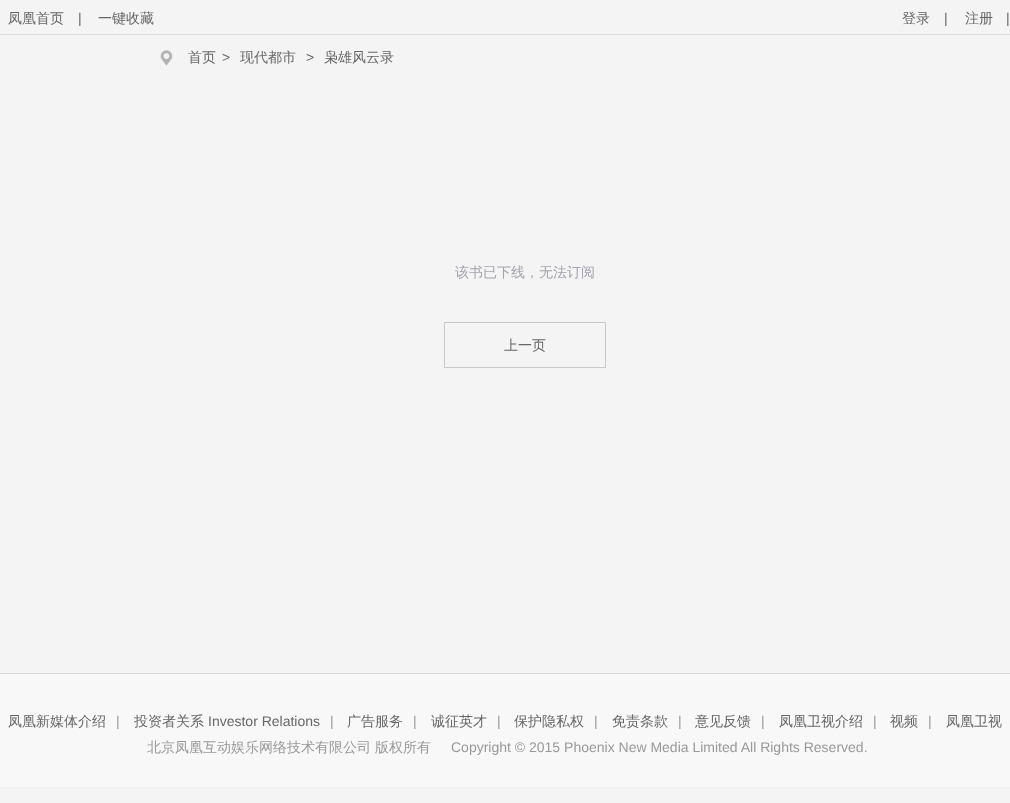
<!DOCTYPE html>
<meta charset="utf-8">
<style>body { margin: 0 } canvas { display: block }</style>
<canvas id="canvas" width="1010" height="803"></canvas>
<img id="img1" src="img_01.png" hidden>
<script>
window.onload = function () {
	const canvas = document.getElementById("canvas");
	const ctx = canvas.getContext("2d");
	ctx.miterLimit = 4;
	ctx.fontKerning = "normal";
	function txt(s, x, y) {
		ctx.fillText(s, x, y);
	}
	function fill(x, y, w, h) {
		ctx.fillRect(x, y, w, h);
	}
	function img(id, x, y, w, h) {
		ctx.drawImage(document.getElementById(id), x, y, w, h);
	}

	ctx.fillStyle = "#F4F4F4";
	fill(0, 0, 1010, 803);
	ctx.fillStyle = "#DADADA";
	fill(0, 34, 1010, 1);
	img("img1", 160, 50, 13, 16);
	ctx.strokeStyle = "#C9C9C9";
	ctx.strokeRect(444.5, 322.5, 161, 45);
	ctx.fillStyle = "#F8F8F8";
	fill(0, 674, 1010, 113);
	ctx.fillStyle = "#DADADA";
	fill(0, 673, 1010, 1);
	ctx.font = "500 14px WenQuanYi Zen Hei";
	ctx.fillStyle = "#666666";
	txt("凤凰首页", 8, 23);
	ctx.font = "14px Liberation Sans";
	txt("|", 78, 23);
	ctx.font = "500 14px WenQuanYi Zen Hei";
	txt("一键收藏", 98, 23);
	txt("登录", 902, 23);
	ctx.font = "14px Liberation Sans";
	txt("|", 944, 23);
	ctx.font = "500 14px WenQuanYi Zen Hei";
	txt("注册", 965, 23);
	ctx.font = "14px Liberation Sans";
	txt("|", 1006, 23);
	ctx.font = "500 14px WenQuanYi Zen Hei";
	txt("首页", 188, 62);
	ctx.font = "14px Liberation Sans";
	txt(">", 222, 62);
	ctx.font = "500 14px WenQuanYi Zen Hei";
	txt("现代都市", 240, 62);
	ctx.font = "14px Liberation Sans";
	txt(">", 306, 62);
	ctx.font = "500 14px WenQuanYi Zen Hei";
	txt("枭雄风云录", 324, 62);
	ctx.fillStyle = "#A3A3AF";
	txt("该书已下线，无法订阅", 455, 277);
	ctx.fillStyle = "#666666";
	txt("上一页", 504, 350);
	txt("凤凰新媒体介绍", 8, 726);
	ctx.font = "14px Liberation Sans";
	ctx.fillStyle = "#999999";
	txt("|", 116, 726);
	ctx.font = "500 14px WenQuanYi Zen Hei";
	ctx.fillStyle = "#666666";
	txt("投资者关系", 134, 726);
	ctx.font = "14px Liberation Sans";
	txt("Investor Relations", 208, 726);
	ctx.fillStyle = "#999999";
	txt("|", 330, 726);
	ctx.font = "500 14px WenQuanYi Zen Hei";
	ctx.fillStyle = "#666666";
	txt("广告服务", 347, 726);
	ctx.font = "14px Liberation Sans";
	ctx.fillStyle = "#999999";
	txt("|", 413, 726);
	ctx.font = "500 14px WenQuanYi Zen Hei";
	ctx.fillStyle = "#666666";
	txt("诚征英才", 431, 726);
	ctx.font = "14px Liberation Sans";
	ctx.fillStyle = "#999999";
	txt("|", 497, 726);
	ctx.font = "500 14px WenQuanYi Zen Hei";
	ctx.fillStyle = "#666666";
	txt("保护隐私权", 514, 726);
	ctx.font = "14px Liberation Sans";
	ctx.fillStyle = "#999999";
	txt("|", 594, 726);
	ctx.font = "500 14px WenQuanYi Zen Hei";
	ctx.fillStyle = "#666666";
	txt("免责条款", 612, 726);
	ctx.font = "14px Liberation Sans";
	ctx.fillStyle = "#999999";
	txt("|", 678, 726);
	ctx.font = "500 14px WenQuanYi Zen Hei";
	ctx.fillStyle = "#666666";
	txt("意见反馈", 695, 726);
	ctx.font = "14px Liberation Sans";
	ctx.fillStyle = "#999999";
	txt("|", 761, 726);
	ctx.font = "500 14px WenQuanYi Zen Hei";
	ctx.fillStyle = "#666666";
	txt("凤凰卫视介绍", 779, 726);
	ctx.font = "14px Liberation Sans";
	ctx.fillStyle = "#999999";
	txt("|", 873, 726);
	ctx.font = "500 14px WenQuanYi Zen Hei";
	ctx.fillStyle = "#666666";
	txt("视频", 890, 726);
	ctx.font = "14px Liberation Sans";
	ctx.fillStyle = "#999999";
	txt("|", 928, 726);
	ctx.font = "500 14px WenQuanYi Zen Hei";
	ctx.fillStyle = "#666666";
	txt("凤凰卫视", 946, 726);
	ctx.fillStyle = "#999999";
	txt("北京凤凰互动娱乐网络技术有限公司", 147, 752);
	txt("版权所有", 375, 752);
	ctx.font = "14px Liberation Sans";
	txt("Copyright © 2015 Phoenix New Media Limited All Rights Reserved.", 451, 752);
};
</script>
